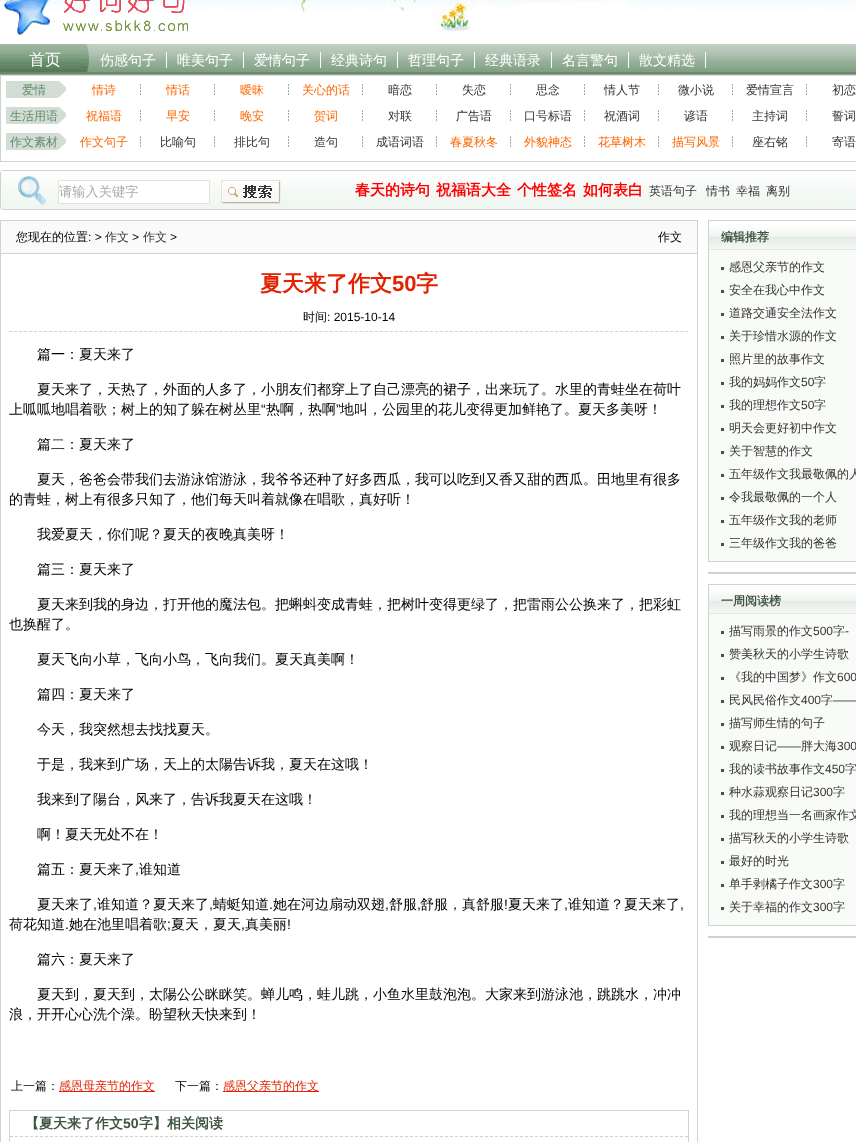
async function draw(canvas) {
	canvas.width = 856;
	canvas.height = 1142;
	const c = canvas.getContext('2d');
	c.miterLimit = 4;
	c.fontKerning = 'normal';
	async function loadImage(src) {
		const img = new Image();
		img.src = src;
		await img.decode();
		return img;
	}

	c.fillStyle = '#fff';
	c.fillRect(0, 0, 856, 1142);
	c.drawImage(await loadImage('img1.png'), 0, 0, 856, 33);
	c.drawImage(await loadImage('img2.png'), 4, 0, 184, 35);
	c.drawImage(await loadImage('img3.png'), 0, 42, 856, 34);
	c.font = '500 16px WenQuanYi Zen Hei';
	c.fillText('首页', 29, 65);
	c.fillStyle = '#fbfcfb';
	c.fillRect(166, 52, 1, 16);
	c.font = '500 14px WenQuanYi Zen Hei';
	c.fillStyle = '#fff';
	c.fillText('伤感句子', 100, 65);
	c.fillStyle = '#fbfcfb';
	c.fillRect(243, 52, 1, 16);
	c.fillStyle = '#fff';
	c.fillText('唯美句子', 177, 65);
	c.fillStyle = '#fbfcfb';
	c.fillRect(320, 52, 1, 16);
	c.fillStyle = '#fff';
	c.fillText('爱情句子', 254, 65);
	c.fillStyle = '#fbfcfb';
	c.fillRect(397, 52, 1, 16);
	c.fillStyle = '#fff';
	c.fillText('经典诗句', 331, 65);
	c.fillStyle = '#fbfcfb';
	c.fillRect(474, 52, 1, 16);
	c.fillStyle = '#fff';
	c.fillText('哲理句子', 408, 65);
	c.fillStyle = '#fbfcfb';
	c.fillRect(551, 52, 1, 16);
	c.fillStyle = '#fff';
	c.fillText('经典语录', 485, 65);
	c.fillStyle = '#fbfcfb';
	c.fillRect(628, 52, 1, 16);
	c.fillStyle = '#fff';
	c.fillText('名言警句', 562, 65);
	c.fillStyle = '#fbfcfb';
	c.fillRect(705, 52, 1, 16);
	c.fillStyle = '#fff';
	c.fillText('散文精选', 639, 65);
	c.fillStyle = '#ccd5cd';
	c.fillRect(0, 161, 856, 1);
	c.fillRect(0, 76, 1, 86);
	c.drawImage(await loadImage('img4.png'), 6, 81, 60, 17);
	c.font = '500 12px WenQuanYi Zen Hei';
	c.fillStyle = '#668a69';
	c.fillText('爱情', 22, 94);
	c.fillStyle = '#f60';
	c.fillText('情诗', 92, 94);
	c.drawImage(await loadImage('img5.png'), 140, 84, 1, 11);
	c.fillText('情话', 166, 94);
	c.drawImage(await loadImage('img5.png'), 214, 84, 1, 11);
	c.fillText('暧昧', 240, 94);
	c.drawImage(await loadImage('img5.png'), 288, 84, 1, 11);
	c.fillText('关心的话', 302, 94);
	c.drawImage(await loadImage('img5.png'), 362, 84, 1, 11);
	c.fillStyle = '#333';
	c.fillText('暗恋', 388, 94);
	c.drawImage(await loadImage('img5.png'), 436, 84, 1, 11);
	c.fillText('失恋', 462, 94);
	c.drawImage(await loadImage('img5.png'), 510, 84, 1, 11);
	c.fillText('思念', 536, 94);
	c.drawImage(await loadImage('img5.png'), 584, 84, 1, 11);
	c.fillText('情人节', 604, 94);
	c.drawImage(await loadImage('img5.png'), 658, 84, 1, 11);
	c.fillText('微小说', 678, 94);
	c.drawImage(await loadImage('img5.png'), 732, 84, 1, 11);
	c.fillText('爱情宣言', 746, 94);
	c.drawImage(await loadImage('img5.png'), 806, 84, 1, 11);
	c.fillText('初恋', 832, 94);
	c.drawImage(await loadImage('img4.png'), 6, 107, 60, 17);
	c.fillStyle = '#668a69';
	c.fillText('生活用语', 10, 120);
	c.fillStyle = '#f60';
	c.fillText('祝福语', 86, 120);
	c.drawImage(await loadImage('img5.png'), 140, 110, 1, 11);
	c.fillText('早安', 166, 120);
	c.drawImage(await loadImage('img5.png'), 214, 110, 1, 11);
	c.fillText('晚安', 240, 120);
	c.drawImage(await loadImage('img5.png'), 288, 110, 1, 11);
	c.fillText('贺词', 314, 120);
	c.drawImage(await loadImage('img5.png'), 362, 110, 1, 11);
	c.fillStyle = '#333';
	c.fillText('对联', 388, 120);
	c.drawImage(await loadImage('img5.png'), 436, 110, 1, 11);
	c.fillText('广告语', 456, 120);
	c.drawImage(await loadImage('img5.png'), 510, 110, 1, 11);
	c.fillText('口号标语', 524, 120);
	c.drawImage(await loadImage('img5.png'), 584, 110, 1, 11);
	c.fillText('祝酒词', 604, 120);
	c.drawImage(await loadImage('img5.png'), 658, 110, 1, 11);
	c.fillText('谚语', 684, 120);
	c.drawImage(await loadImage('img5.png'), 732, 110, 1, 11);
	c.fillText('主持词', 752, 120);
	c.drawImage(await loadImage('img5.png'), 806, 110, 1, 11);
	c.fillText('誓词', 832, 120);
	c.drawImage(await loadImage('img4.png'), 6, 133, 60, 17);
	c.fillStyle = '#668a69';
	c.fillText('作文素材', 10, 146);
	c.fillStyle = '#f60';
	c.fillText('作文句子', 80, 146);
	c.drawImage(await loadImage('img5.png'), 140, 136, 1, 11);
	c.fillStyle = '#333';
	c.fillText('比喻句', 160, 146);
	c.drawImage(await loadImage('img5.png'), 214, 136, 1, 11);
	c.fillText('排比句', 234, 146);
	c.drawImage(await loadImage('img5.png'), 288, 136, 1, 11);
	c.fillText('造句', 314, 146);
	c.drawImage(await loadImage('img5.png'), 362, 136, 1, 11);
	c.fillText('成语词语', 376, 146);
	c.drawImage(await loadImage('img5.png'), 436, 136, 1, 11);
	c.fillStyle = '#f60';
	c.fillText('春夏秋冬', 450, 146);
	c.drawImage(await loadImage('img5.png'), 510, 136, 1, 11);
	c.fillText('外貌神态', 524, 146);
	c.drawImage(await loadImage('img5.png'), 584, 136, 1, 11);
	c.fillText('花草树木', 598, 146);
	c.drawImage(await loadImage('img5.png'), 658, 136, 1, 11);
	c.fillText('描写风景', 672, 146);
	c.drawImage(await loadImage('img5.png'), 732, 136, 1, 11);
	c.fillStyle = '#333';
	c.fillText('座右铭', 752, 146);
	c.drawImage(await loadImage('img5.png'), 806, 136, 1, 11);
	c.fillText('寄语', 832, 146);
	c.drawImage(await loadImage('img6.png'), 0, 170, 856, 40);
	c.fillStyle = '#fff';
	c.beginPath();
	c.rect(58.5, 180.5, 151, 23);
	c.fill();
	c.strokeStyle = '#e3e2d5';
	c.stroke();
	c.font = '500 13.25px WenQuanYi Zen Hei';
	c.fillStyle = '#aaa';
	c.fillText('请输入关键字', 59, 196);
	c.drawImage(await loadImage('img7.png'), 221, 180, 60, 24);
	c.font = 'bold 15px WenQuanYi Zen Hei';
	c.fillStyle = '#f00';
	for (const [text, x, y] of [
		['春天的诗句', 355, 195],
		['祝福语大全', 436, 195],
		['个性签名', 517, 195],
		['如何表白', 583, 195],
	]) {
		c.fillText(text, x, y);
	}
	c.font = '500 12px WenQuanYi Zen Hei';
	c.fillStyle = '#333';
	for (const [text, x, y] of [
		['英语句子', 649, 195],
		['情书', 706, 195],
		['幸福', 736, 195],
		['离别', 766, 195],
	]) {
		c.fillText(text, x, y);
	}
	c.strokeStyle = '#ccd5cd';
	c.strokeRect(0.5, 220.5, 697, 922);
	c.fillStyle = '#fafafa';
	c.fillRect(1, 221, 696, 32);
	c.fillStyle = '#ccd5cd';
	c.fillRect(1, 253, 696, 1);
	c.fillStyle = '#000';
	c.fillText('您现在的位置', 16, 241);
	c.font = '12px Liberation Sans';
	c.fillText(': >', 88, 241);
	c.font = '500 12px WenQuanYi Zen Hei';
	c.fillStyle = '#333';
	c.fillText('作文', 105, 241);
	c.font = '12px Liberation Sans';
	c.fillStyle = '#000';
	c.fillText('>', 132, 241);
	c.font = '500 12px WenQuanYi Zen Hei';
	c.fillStyle = '#333';
	c.fillText('作文', 143, 241);
	c.font = '12px Liberation Sans';
	c.fillStyle = '#000';
	c.fillText('>', 170, 241);
	c.font = '500 12px WenQuanYi Zen Hei';
	c.fillText('作文', 658, 241);
	c.font = 'bold 22px WenQuanYi Zen Hei';
	c.fillStyle = '#e32202';
	c.fillText('夏天来了作文', 260, 291);
	c.font = 'bold 22px Liberation Sans';
	c.fillText('50', 392, 291);
	c.font = 'bold 22px WenQuanYi Zen Hei';
	c.fillText('字', 416, 291);
	c.beginPath();
	c.moveTo(9, 331.5);
	c.lineTo(689, 331.5);
	c.setLineDash([3, 2.01]);
	c.stroke();
	c.font = '500 12px WenQuanYi Zen Hei';
	c.fillStyle = '#000';
	c.fillText('时间', 303, 321);
	c.font = '12px Liberation Sans';
	c.fillText(': 2015-10-14', 327, 321);
	c.font = '500 14px WenQuanYi Zen Hei';
	for (const [text, x, y] of [
		['篇一：夏天来了', 37, 359],
		['夏天来了，天热了，外面的人多了，小朋友们都穿上了自己漂亮的裙子，出来玩了。水里的青蛙坐在荷叶', 37, 394],
		['上呱呱地唱着歌；树上的知了躲在树丛里', 9, 414],
	]) {
		c.fillText(text, x, y);
	}
	c.font = '14px Liberation Sans';
	c.fillText('“', 261, 414);
	c.font = '500 14px WenQuanYi Zen Hei';
	c.fillText('热啊，热啊', 266, 414);
	c.font = '14px Liberation Sans';
	c.fillText('”', 336, 414);
	c.font = '500 14px WenQuanYi Zen Hei';
	for (const [text, x, y] of [
		['地叫，公园里的花儿变得更加鲜艳了。夏天多美呀！', 340, 414],
		['篇二：夏天来了', 37, 449],
		['夏天，爸爸会带我们去游泳馆游泳，我爷爷还种了好多西瓜，我可以吃到又香又甜的西瓜。田地里有很多', 37, 484],
		['的青蛙，树上有很多只知了，他们每天叫着就像在唱歌，真好听！', 9, 504],
		['我爱夏天，你们呢？夏天的夜晚真美呀！', 37, 539],
		['篇三：夏天来了', 37, 574],
		['夏天来到我的身边，打开他的魔法包。把蝌蚪变成青蛙，把树叶变得更绿了，把雷雨公公换来了，把彩虹', 37, 609],
		['也换醒了。', 9, 629],
		['夏天飞向小草，飞向小鸟，飞向我们。夏天真美啊！', 37, 664],
		['篇四：夏天来了', 37, 699],
		['今天，我突然想去找找夏天。', 37, 734],
		['于是，我来到广场，天上的太陽告诉我，夏天在这哦！', 37, 769],
		['我来到了陽台，风来了，告诉我夏天在这哦！', 37, 804],
		['啊！夏天无处不在！', 37, 839],
		['篇五：夏天来了', 37, 874],
	]) {
		c.fillText(text, x, y);
	}
	c.font = '14px Liberation Sans';
	c.fillText(',', 135, 874);
	c.font = '500 14px WenQuanYi Zen Hei';
	c.fillText('谁知道', 139, 874);
	c.fillText('夏天来了', 37, 909);
	c.font = '14px Liberation Sans';
	c.fillText(',', 93, 909);
	c.font = '500 14px WenQuanYi Zen Hei';
	c.fillText('谁知道？夏天来了', 97, 909);
	c.font = '14px Liberation Sans';
	c.fillText(',', 209, 909);
	c.font = '500 14px WenQuanYi Zen Hei';
	c.fillText('蜻蜓知道', 213, 909);
	c.font = '14px Liberation Sans';
	c.fillText('.', 269, 909);
	c.font = '500 14px WenQuanYi Zen Hei';
	c.fillText('她在河边扇动双翅', 273, 909);
	c.font = '14px Liberation Sans';
	c.fillText(',', 385, 909);
	c.font = '500 14px WenQuanYi Zen Hei';
	c.fillText('舒服', 389, 909);
	c.font = '14px Liberation Sans';
	c.fillText(',', 417, 909);
	c.font = '500 14px WenQuanYi Zen Hei';
	c.fillText('舒服，真舒服', 420, 909);
	c.font = '14px Liberation Sans';
	c.fillText('!', 504, 909);
	c.font = '500 14px WenQuanYi Zen Hei';
	c.fillText('夏天来了', 508, 909);
	c.font = '14px Liberation Sans';
	c.fillText(',', 564, 909);
	c.font = '500 14px WenQuanYi Zen Hei';
	c.fillText('谁知道？夏天来了', 568, 909);
	c.font = '14px Liberation Sans';
	c.fillText(',', 680, 909);
	c.font = '500 14px WenQuanYi Zen Hei';
	c.fillText('荷花知道', 9, 929);
	c.font = '14px Liberation Sans';
	c.fillText('.', 65, 929);
	c.font = '500 14px WenQuanYi Zen Hei';
	c.fillText('她在池里唱着歌', 69, 929);
	c.font = '14px Liberation Sans';
	c.fillText(';', 167, 929);
	c.font = '500 14px WenQuanYi Zen Hei';
	c.fillText('夏天，夏天', 171, 929);
	c.font = '14px Liberation Sans';
	c.fillText(',', 241, 929);
	c.font = '500 14px WenQuanYi Zen Hei';
	c.fillText('真美丽', 245, 929);
	c.font = '14px Liberation Sans';
	c.fillText('!', 287, 929);
	c.font = '500 14px WenQuanYi Zen Hei';
	for (const [text, x, y] of [
		['篇六：夏天来了', 37, 964],
		['夏天到，夏天到，太陽公公眯眯笑。蝉儿鸣，蛙儿跳，小鱼水里鼓泡泡。大家来到游泳池，跳跳水，冲冲', 37, 999],
		['浪，开开心心洗个澡。盼望秋天快来到！', 9, 1019],
	]) {
		c.fillText(text, x, y);
	}
	c.font = '500 12px WenQuanYi Zen Hei';
	c.fillText('上一篇：', 11, 1090);
	c.fillStyle = '#e32202';
	c.fillRect(59, 1091, 96, 1);
	c.fillText('感恩母亲节的作文', 59, 1090);
	c.fillStyle = '#000';
	c.fillText('下一篇：', 175, 1090);
	c.fillStyle = '#e32202';
	c.fillRect(223, 1091, 96, 1);
	c.fillText('感恩父亲节的作文', 223, 1090);
	c.setLineDash([]);
	c.strokeRect(9.5, 1110.5, 679, 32);
	c.beginPath();
	c.moveTo(10, 1136.5);
	c.lineTo(688, 1136.5);
	c.setLineDash([3, 2]);
	c.stroke();
	c.font = 'bold 14px WenQuanYi Zen Hei';
	c.fillStyle = '#3f5441';
	c.fillText('【夏天来了作文', 25, 1128);
	c.font = 'bold 14px Liberation Sans';
	c.fillText('50', 123, 1128);
	c.font = 'bold 14px WenQuanYi Zen Hei';
	c.fillText('字】相关阅读', 139, 1128);
	c.fillStyle = '#f8fbf7';
	c.fillRect(709, 250, 147, 311);
	c.setLineDash([]);
	c.strokeRect(708.5, 220.5, 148, 341);
	c.drawImage(await loadImage('img8.png'), 709, 221, 147, 29);
	c.font = 'bold 12px WenQuanYi Zen Hei';
	c.fillStyle = '#3f5441';
	c.fillText('编辑推荐', 721, 241);
	c.fillRect(721, 267, 3, 3);
	c.font = '500 12px WenQuanYi Zen Hei';
	c.fillStyle = '#333';
	c.fillText('感恩父亲节的作文', 729, 271);
	c.fillStyle = '#3f5441';
	c.fillRect(721, 290, 3, 3);
	c.fillStyle = '#333';
	c.fillText('安全在我心中作文', 729, 294);
	c.fillStyle = '#3f5441';
	c.fillRect(721, 313, 3, 3);
	c.fillStyle = '#333';
	c.fillText('道路交通安全法作文', 729, 317);
	c.fillStyle = '#3f5441';
	c.fillRect(721, 336, 3, 3);
	c.fillStyle = '#333';
	c.fillText('关于珍惜水源的作文', 729, 340);
	c.fillStyle = '#3f5441';
	c.fillRect(721, 359, 3, 3);
	c.fillStyle = '#333';
	c.fillText('照片里的故事作文', 729, 363);
	c.fillStyle = '#3f5441';
	c.fillRect(721, 382, 3, 3);
	c.fillStyle = '#333';
	c.fillText('我的妈妈作文', 729, 386);
	c.font = '12px Liberation Sans';
	c.fillText('50', 801, 386);
	c.font = '500 12px WenQuanYi Zen Hei';
	c.fillText('字', 814, 386);
	c.fillStyle = '#3f5441';
	c.fillRect(721, 405, 3, 3);
	c.fillStyle = '#333';
	c.fillText('我的理想作文', 729, 409);
	c.font = '12px Liberation Sans';
	c.fillText('50', 801, 409);
	c.font = '500 12px WenQuanYi Zen Hei';
	c.fillText('字', 814, 409);
	c.fillStyle = '#3f5441';
	c.fillRect(721, 428, 3, 3);
	c.fillStyle = '#333';
	c.fillText('明天会更好初中作文', 729, 432);
	c.fillStyle = '#3f5441';
	c.fillRect(721, 451, 3, 3);
	c.fillStyle = '#333';
	c.fillText('关于智慧的作文', 729, 455);
	c.fillStyle = '#3f5441';
	c.fillRect(721, 474, 3, 3);
	c.fillStyle = '#333';
	c.fillText('五年级作文我最敬佩的人', 729, 478);
	c.fillStyle = '#3f5441';
	c.fillRect(721, 497, 3, 3);
	c.fillStyle = '#333';
	c.fillText('令我最敬佩的一个人', 729, 501);
	c.fillStyle = '#3f5441';
	c.fillRect(721, 520, 3, 3);
	c.fillStyle = '#333';
	c.fillText('五年级作文我的老师', 729, 524);
	c.fillStyle = '#3f5441';
	c.fillRect(721, 543, 3, 3);
	c.fillStyle = '#333';
	c.fillText('三年级作文我的爸爸', 729, 547);
	c.fillStyle = '#ccd5cd';
	c.fillRect(708, 572, 148, 2);
	c.fillStyle = '#f8fbf7';
	c.fillRect(709, 614, 147, 311);
	c.strokeRect(708.5, 584.5, 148, 341);
	c.drawImage(await loadImage('img8.png'), 709, 585, 147, 29);
	c.font = 'bold 12px WenQuanYi Zen Hei';
	c.fillStyle = '#3f5441';
	c.fillText('一周阅读榜', 721, 605);
	c.fillRect(721, 631, 3, 3);
	c.font = '500 12px WenQuanYi Zen Hei';
	c.fillStyle = '#333';
	c.fillText('描写雨景的作文', 729, 635);
	c.font = '12px Liberation Sans';
	c.fillText('500', 813, 635);
	c.font = '500 12px WenQuanYi Zen Hei';
	c.fillText('字', 833, 635);
	c.font = '12px Liberation Sans';
	c.fillText('-', 845, 635);
	c.fillStyle = '#3f5441';
	c.fillRect(721, 654, 3, 3);
	c.font = '500 12px WenQuanYi Zen Hei';
	c.fillStyle = '#333';
	c.fillText('赞美秋天的小学生诗歌', 729, 658);
	c.fillStyle = '#3f5441';
	c.fillRect(721, 677, 3, 3);
	c.fillStyle = '#333';
	c.fillText('《我的中国梦》作文', 729, 681);
	c.font = '12px Liberation Sans';
	c.fillText('600', 837, 681);
	c.fillStyle = '#3f5441';
	c.fillRect(721, 700, 3, 3);
	c.font = '500 12px WenQuanYi Zen Hei';
	c.fillStyle = '#333';
	c.fillText('民风民俗作文', 729, 704);
	c.font = '12px Liberation Sans';
	c.fillText('400', 801, 704);
	c.font = '500 12px WenQuanYi Zen Hei';
	c.fillText('字', 821, 704);
	c.font = '12px Liberation Sans';
	c.fillText('——', 833, 704);
	c.fillStyle = '#3f5441';
	c.fillRect(721, 723, 3, 3);
	c.font = '500 12px WenQuanYi Zen Hei';
	c.fillStyle = '#333';
	c.fillText('描写师生情的句子', 729, 727);
	c.fillStyle = '#3f5441';
	c.fillRect(721, 746, 3, 3);
	c.fillStyle = '#333';
	c.fillText('观察日记', 729, 750);
	c.font = '12px Liberation Sans';
	c.fillText('——', 777, 750);
	c.font = '500 12px WenQuanYi Zen Hei';
	c.fillText('胖大海', 801, 750);
	c.font = '12px Liberation Sans';
	c.fillText('300', 837, 750);
	c.fillStyle = '#3f5441';
	c.fillRect(721, 769, 3, 3);
	c.font = '500 12px WenQuanYi Zen Hei';
	c.fillStyle = '#333';
	c.fillText('我的读书故事作文', 729, 773);
	c.font = '12px Liberation Sans';
	c.fillText('450', 825, 773);
	c.font = '500 12px WenQuanYi Zen Hei';
	c.fillText('字', 845, 773);
	c.fillStyle = '#3f5441';
	c.fillRect(721, 792, 3, 3);
	c.fillStyle = '#333';
	c.fillText('种水蒜观察日记', 729, 796);
	c.font = '12px Liberation Sans';
	c.fillText('300', 813, 796);
	c.font = '500 12px WenQuanYi Zen Hei';
	c.fillText('字', 833, 796);
	c.fillStyle = '#3f5441';
	c.fillRect(721, 815, 3, 3);
	c.fillStyle = '#333';
	c.fillText('我的理想当一名画家作文', 729, 819);
	c.fillStyle = '#3f5441';
	c.fillRect(721, 838, 3, 3);
	c.fillStyle = '#333';
	c.fillText('描写秋天的小学生诗歌', 729, 842);
	c.fillStyle = '#3f5441';
	c.fillRect(721, 861, 3, 3);
	c.fillStyle = '#333';
	c.fillText('最好的时光', 729, 865);
	c.fillStyle = '#3f5441';
	c.fillRect(721, 884, 3, 3);
	c.fillStyle = '#333';
	c.fillText('单手剥橘子作文', 729, 888);
	c.font = '12px Liberation Sans';
	c.fillText('300', 813, 888);
	c.font = '500 12px WenQuanYi Zen Hei';
	c.fillText('字', 833, 888);
	c.fillStyle = '#3f5441';
	c.fillRect(721, 907, 3, 3);
	c.fillStyle = '#333';
	c.fillText('关于幸福的作文', 729, 911);
	c.font = '12px Liberation Sans';
	c.fillText('300', 813, 911);
	c.font = '500 12px WenQuanYi Zen Hei';
	c.fillText('字', 833, 911);
	c.fillStyle = '#ccd5cd';
	c.fillRect(708, 936, 148, 2);
}

draw(document.querySelector('canvas'));
